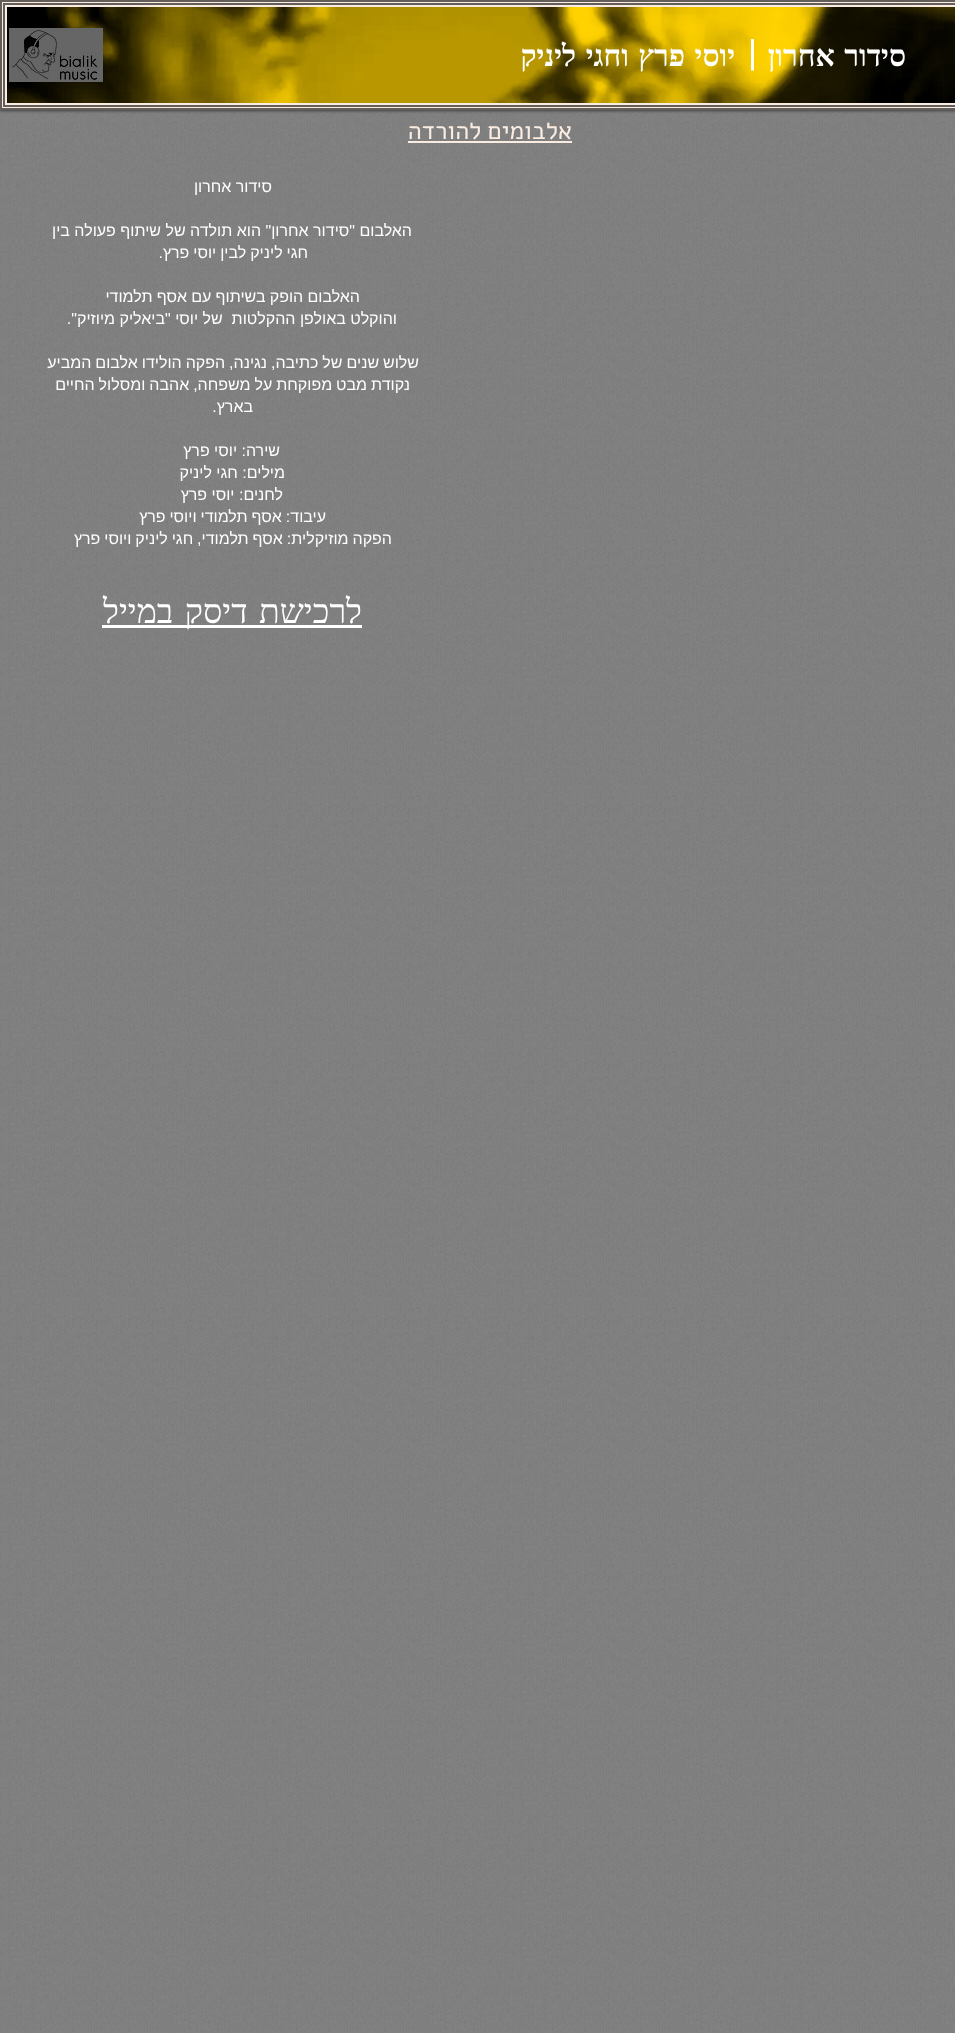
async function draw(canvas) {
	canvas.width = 955;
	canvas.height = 2033;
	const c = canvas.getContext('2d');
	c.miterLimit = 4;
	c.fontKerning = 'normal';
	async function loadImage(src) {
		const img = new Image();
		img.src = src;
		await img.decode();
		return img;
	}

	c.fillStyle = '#838383';
	c.fillRect(0, 0, 955, 2033);
	c.drawImage(await loadImage('img3.png'), 0, 110, 955, 1923);
	c.fillStyle = '#00000080';
	c.filter = 'blur(1.5px)';
	c.beginPath();
	c.rect(0, 1, 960, 110);
	c.fill();
	c.filter = 'none';
	c.fillStyle = '#faece1';
	c.beginPath();
	c.rect(1, 1, 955, 108);
	c.fill();
	c.strokeStyle = '#645e5a';
	c.lineWidth = 2;
	c.stroke();
	c.drawImage(await loadImage('img1.png'), 7, 7, 948, 96);
	c.strokeRect(4, 4, 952, 102);
	c.wordSpacing = '2px';
	c.direction = 'rtl';
	c.font = 'bold 30px Liberation Serif';
	c.fillStyle = '#fff';
	c.fillText('סידור אחרון', 906, 66);
	c.wordSpacing = '0px';
	c.font = 'bold 30px Kelly Slab';
	c.fillText('|', 756, 66);
	c.wordSpacing = '2px';
	c.font = 'bold 30px Liberation Serif';
	c.fillText('יוסי פרץ וחגי ליניק', 735, 66);
	c.drawImage(await loadImage('img2.png'), 9, 28, 94, 54);
	c.wordSpacing = '0px';
	c.font = '25px Alef';
	c.fillStyle = '#faece1';
	c.fillText('אלבומים להורדה', 572, 139);
	c.fillRect(408, 141, 164, 2);
	c.font = '16px Liberation Sans';
	c.fillStyle = '#fff';
	c.fillText('סידור אחרון', 272, 192);
	c.fillText('האלבום "סידור אחרון" הוא תולדה של שיתוף פעולה בין', 412, 236);
	c.wordSpacing = '-0.5px';
	c.fillText('חגי ליניק לבין יוסי פרץ.', 308, 258);
	c.wordSpacing = '-0.25px';
	c.fillText('האלבום הופק בשיתוף עם אסף תלמודי', 360, 302);
	c.wordSpacing = '0px';
	c.fillText('והוקלט באולפן ההקלטות  של יוסי "ביאליק מיוזיק".', 397, 324);
	c.wordSpacing = '-0.5px';
	c.fillText('שלוש שנים של כתיבה, נגינה, הפקה הולידו אלבום המביע', 419, 368);
	c.fillText('נקודת מבט מפוקחת על משפחה, אהבה ומסלול החיים', 410, 390);
	c.wordSpacing = '0px';
	for (const [text, x, y] of [
		['בארץ.', 253, 412],
		['שירה: יוסי פרץ', 280, 456],
		['מילים: חגי ליניק', 285, 478],
		['לחנים: יוסי פרץ', 283, 500],
	]) {
		c.fillText(text, x, y);
	}
	c.wordSpacing = '-0.5px';
	c.fillText('עיבוד: אסף תלמודי ויוסי פרץ', 326, 522);
	c.fillText('הפקה מוזיקלית: אסף תלמודי, חגי ליניק ויוסי פרץ', 392, 544);
	c.fillRect(102, 625, 260, 3);
	c.wordSpacing = '3px';
	c.font = '34px Liberation Serif';
	c.fillText('לרכישת דיסק במייל', 362, 623);
}

draw(document.querySelector('canvas'));
